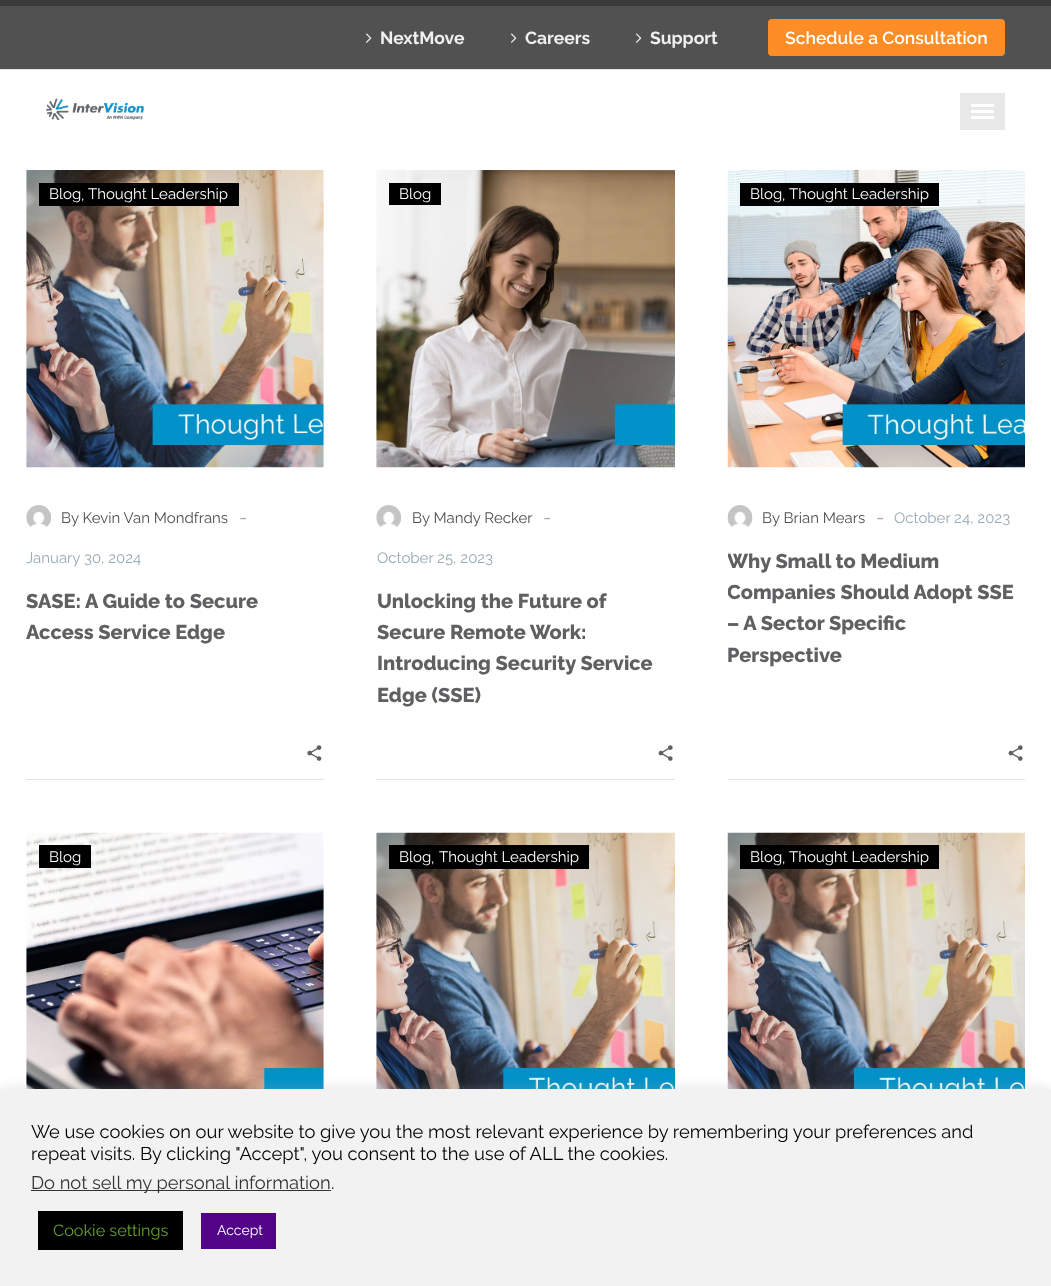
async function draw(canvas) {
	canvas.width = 1051;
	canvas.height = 1286;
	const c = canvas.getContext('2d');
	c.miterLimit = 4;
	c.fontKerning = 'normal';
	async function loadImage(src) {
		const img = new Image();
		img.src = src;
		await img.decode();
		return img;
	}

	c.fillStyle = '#515151';
	c.fillRect(0, 0, 1051, 1286);
	c.fillStyle = '#3b3a3a';
	c.fillRect(0, 0, 1051, 6);
	c.fillStyle = '#dfe5e8';
	c.fillRect(0, 69, 1051, 1);
	c.drawImage(await loadImage('img1.png'), 366, 33, 6, 10);
	c.font = 'bold 17.5px Raleway';
	c.fillStyle = '#eff0f1';
	c.fillText('NextMove', 380, 44);
	c.drawImage(await loadImage('img1.png'), 511, 33, 6, 10);
	c.fillText('Careers', 525, 44);
	c.drawImage(await loadImage('img1.png'), 636, 33, 6, 10);
	c.fillText('Support', 650, 44);
	c.fillStyle = '#ff8d25';
	c.beginPath();
	c.roundRect(768, 19, 237, 37, 4);
	c.fill();
	c.font = '600 17.5px Raleway';
	c.fillStyle = '#fff';
	c.fillText('Schedule a Consultation', 785, 44);
	c.fillRect(0, 70, 1051, 1019);
	c.drawImage(await loadImage('img2.png'), 46, 98, 99, 22);
	for (const [x, y, w, h, color] of [
		[960, 93, 45, 37, '#e8e8e8'],
		[971, 104, 23, 3, '#fff'],
		[971, 110, 23, 3, '#fff'],
		[971, 116, 23, 3, '#fff'],
	]) {
		c.fillStyle = color;
		c.fillRect(x, y, w, h);
	}
	c.drawImage(await loadImage('img3.png'), 26, 170, 298, 298);
	c.fillStyle = '#000';
	c.fillRect(39, 183, 200, 23);
	c.font = '15px Raleway';
	c.fillStyle = '#fff';
	for (const [text, x, y] of [
		['Blog', 49, 199],
		[',', 81, 200],
		['Thought Leadership', 88, 199],
	]) {
		c.fillText(text, x, y);
	}
	c.fillStyle = '#dfe5e8';
	c.fillRect(26, 779, 298, 1);
	c.drawImage(await loadImage('img4.png'), 26, 505, 25, 22);
	c.fillStyle = '#4f4f50';
	c.fillText('By Kevin Van Mondfrans', 61, 523);
	c.font = '20px Raleway';
	c.fillStyle = '#99a9b5';
	c.fillText('-', 239, 524);
	c.font = '15px Raleway';
	c.fillText('January 30, 2024', 26, 563);
	c.font = '800 20px Raleway';
	c.fillStyle = '#5f6062';
	c.fillText('SASE: A Guide to Secure', 26, 608);
	c.fillText('Access Service Edge', 26, 639);
	c.drawImage(await loadImage('img5.png'), 307, 745, 15, 16);
	c.drawImage(await loadImage('img6.png'), 376, 170, 299, 298);
	c.fillStyle = '#000';
	c.fillRect(389, 183, 52, 22);
	c.font = '15px Raleway';
	c.fillStyle = '#fff';
	c.fillText('Blog', 399, 199);
	c.fillStyle = '#dfe5e8';
	c.fillRect(376, 779, 299, 1);
	c.drawImage(await loadImage('img7.png'), 376, 505, 25, 22);
	c.fillStyle = '#4f4f50';
	c.fillText('By Mandy Recker', 412, 523);
	c.font = '20px Raleway';
	c.fillStyle = '#99a9b5';
	c.fillText('-', 543, 524);
	c.font = '15px Raleway';
	c.fillText('October 25, 2023', 377, 563);
	c.font = '800 20px Raleway';
	c.fillStyle = '#5f6062';
	for (const [text, x, y] of [
		['Unlocking the Future of', 377, 608],
		['Secure Remote Work:', 377, 639],
		['Introducing Security Service', 377, 670],
		['Edge (SSE)', 377, 702],
	]) {
		c.fillText(text, x, y);
	}
	c.drawImage(await loadImage('img8.png'), 658, 745, 15, 16);
	c.drawImage(await loadImage('img9.png'), 727, 170, 298, 298);
	c.fillStyle = '#000';
	c.fillRect(740, 183, 199, 23);
	c.font = '15px Raleway';
	c.fillStyle = '#fff';
	for (const [text, x, y] of [
		['Blog', 750, 199],
		[',', 782, 200],
		['Thought Leadership', 789, 199],
	]) {
		c.fillText(text, x, y);
	}
	c.fillStyle = '#dfe5e8';
	c.fillRect(728, 779, 297, 1);
	c.drawImage(await loadImage('img10.png'), 727, 505, 26, 22);
	c.fillStyle = '#4f4f50';
	c.fillText('By Brian Mears', 762, 523);
	c.font = '20px Raleway';
	c.fillStyle = '#99a9b5';
	c.fillText('-', 876, 524);
	c.font = '15px Raleway';
	c.fillText('October 24, 2023', 894, 523);
	c.save();
	c.beginPath();
	c.rect(728, 545, 297, 125);
	c.clip();
	c.font = '800 20px Raleway';
	c.fillStyle = '#5f6062';
	c.fillText('Why Small to Medium', 727, 568);
	c.fillText('Companies Should Adopt SSE', 727, 599);
	c.restore();
	c.font = '800 20px Raleway';
	c.fillStyle = '#5f6062';
	c.fillText('– A Sector Specific', 727, 630);
	c.fillText('Perspective', 727, 662);
	c.drawImage(await loadImage('img8.png'), 1008, 745, 15, 16);
	c.drawImage(await loadImage('img11.png'), 26, 832, 298, 257);
	c.fillStyle = '#000';
	c.fillRect(39, 845, 52, 23);
	c.font = '15px Raleway';
	c.fillStyle = '#fff';
	c.fillText('Blog', 49, 862);
	c.drawImage(await loadImage('img12.png'), 376, 832, 299, 257);
	c.fillStyle = '#000';
	c.fillRect(389, 845, 200, 24);
	c.fillStyle = '#fff';
	for (const [text, x, y] of [
		['Blog', 399, 862],
		[',', 431, 863],
		['Thought Leadership', 439, 862],
	]) {
		c.fillText(text, x, y);
	}
	c.drawImage(await loadImage('img13.png'), 727, 832, 298, 257);
	c.fillStyle = '#000';
	c.fillRect(740, 845, 199, 24);
	c.fillStyle = '#fff';
	for (const [text, x, y] of [
		['Blog', 750, 862],
		[',', 782, 863],
		['Thought Leadership', 789, 862],
	]) {
		c.fillText(text, x, y);
	}
	c.fillStyle = '#acabab4d';
	c.filter = 'blur(6px)';
	c.beginPath();
	c.rect(0, 1088, 1051, 197);
	c.fill();
	c.filter = 'none';
	c.fillStyle = '#f2f2f2';
	c.fillRect(0, 1089, 1051, 197);
	c.font = '18.33px Raleway';
	c.fillStyle = '#000';
	c.fillText('We use cookies on our website to give you the most relevant experience by remembering your preferences and', 31, 1138);
	c.fillText('repeat visits. By clicking "Accept", you consent to the use of ALL the cookies.', 31, 1160);
	c.fillStyle = '#333';
	c.fillRect(31, 1190, 300, 1);
	c.fillText('Do not sell my personal information', 31, 1189);
	c.fillStyle = '#000';
	c.fillText('.', 331, 1189);
	c.fillRect(38, 1211, 145, 39);
	c.font = '16.25px Raleway';
	c.fillStyle = '#62a329';
	c.fillText('Cookie settings', 53, 1236);
	c.fillStyle = '#520489';
	c.fillRect(201, 1213, 75, 36);
	c.font = '14px Raleway';
	c.fillStyle = '#fff';
	c.fillText('Accept', 217, 1235);
}

draw(document.querySelector('canvas'));
